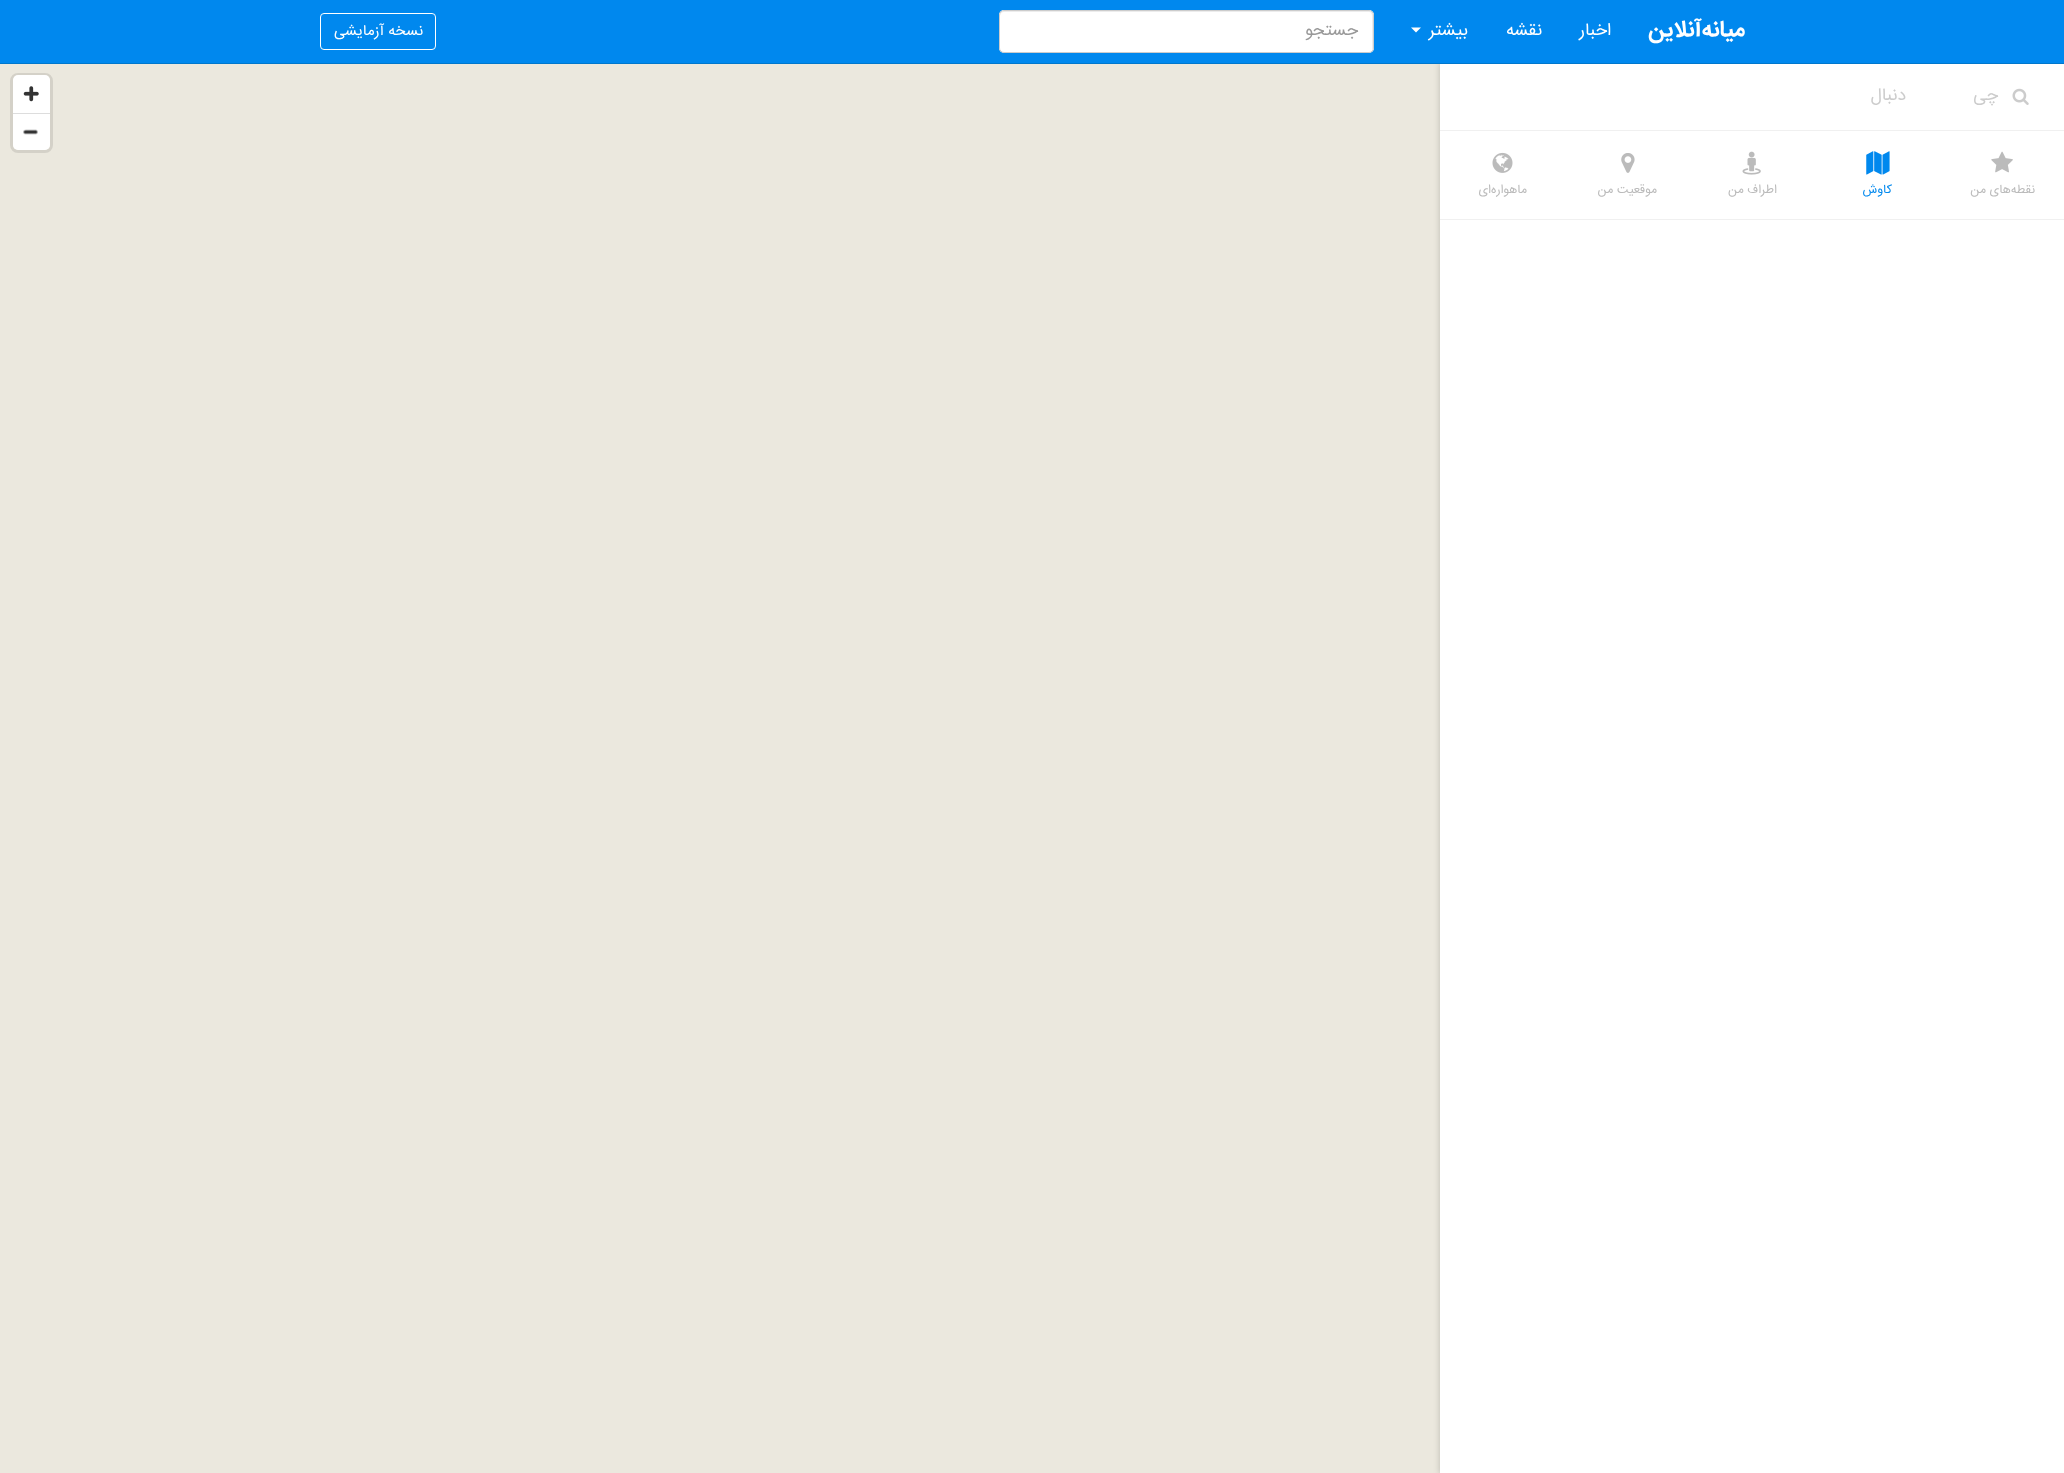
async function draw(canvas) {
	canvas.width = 2064;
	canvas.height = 1473;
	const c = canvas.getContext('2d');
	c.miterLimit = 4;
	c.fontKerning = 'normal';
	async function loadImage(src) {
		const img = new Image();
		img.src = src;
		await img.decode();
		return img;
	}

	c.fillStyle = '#ebe8de';
	c.fillRect(0, 0, 2064, 1473);
	c.fillStyle = '#00000033';
	c.filter = 'blur(3px)';
	c.beginPath();
	c.rect(1440, 63, 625, 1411);
	c.fill();
	c.filter = 'none';
	c.fillStyle = '#08e';
	c.fillRect(0, 0, 2064, 63);
	c.fillStyle = '#07c';
	c.fillRect(0, 63, 2064, 1);
	c.direction = 'rtl';
	c.font = 'bold 22.5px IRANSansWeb';
	c.fillStyle = '#fff';
	c.fillText('میانه‌آنلاین', 1745, 36);
	c.font = '17.5px IRANSansWeb';
	for (const [text, x, y] of [
		['اخبار', 1611, 35],
		['نقشه', 1542, 35],
		['بیشتر', 1468, 35],
	]) {
		c.fillText(text, x, y);
	}
	c.beginPath();
	c.moveTo(1411, 27.5);
	c.lineTo(1421, 27.5);
	c.lineTo(1416, 32.5);
	c.closePath();
	c.fill();
	c.beginPath();
	c.roundRect(999, 10, 375, 43, 5);
	c.fill();
	c.fillStyle = '#ececec';
	c.beginPath();
	c.moveTo(1004, 12);
	c.lineTo(1369, 12);
	c.bezierCurveTo(1371, 12, 1372, 14, 1372, 16);
	c.lineTo(1372, 50);
	c.bezierCurveTo(1373, 49, 1373, 48, 1373, 47);
	c.lineTo(1373, 15);
	c.bezierCurveTo(1373, 13, 1371, 11, 1369, 11);
	c.lineTo(1004, 11);
	c.bezierCurveTo(1002, 11, 1000, 13, 1000, 15);
	c.lineTo(1000, 16);
	c.bezierCurveTo(1000, 14, 1002, 12, 1004, 12);
	c.closePath();
	c.fill();
	c.beginPath();
	c.roundRect(999.5, 10.5, 374, 42, 4.5);
	c.strokeStyle = '#ccc';
	c.stroke();
	c.fillStyle = '#999';
	c.fillText('جستجو', 1358, 35);
	c.beginPath();
	c.roundRect(320.5, 13.5, 115, 36, 3.5);
	c.strokeStyle = '#fff';
	c.stroke();
	c.font = '15px IRANSansWeb';
	c.fillStyle = '#fff';
	c.fillText('نسخه آزمایشی', 423, 35);
	c.fillRect(1440, 64, 624, 1409);
	c.drawImage(await loadImage('img1.png'), 2012, 88, 17, 17);
	c.font = '17.5px IRANSansWeb';
	c.fillStyle = '#ccc';
	c.fillText('چی', 1998, 100);
	c.fillText('دنبال', 1906, 100);
	c.fillStyle = '#f0f0f0';
	c.fillRect(1440, 130, 624, 1);
	c.drawImage(await loadImage('img2.png'), 1991, 151, 22, 22);
	c.font = '12.5px IRANSansWeb';
	c.fillStyle = '#bbb';
	c.fillText('نقطه‌های من', 2035, 193);
	c.drawImage(await loadImage('img3.png'), 1866, 151, 24, 24);
	c.fillStyle = '#08e';
	c.fillText('کاوش', 1892, 193);
	c.drawImage(await loadImage('img4.png'), 1742, 151, 19, 24);
	c.fillStyle = '#bbb';
	c.fillText('اطراف من', 1777, 193);
	c.drawImage(await loadImage('img5.png'), 1621, 153, 14, 20);
	c.fillText('موقعیت من', 1657, 193);
	c.drawImage(await loadImage('img6.png'), 1492, 152, 21, 21);
	c.fillText('ماهواره‌ای', 1527, 193);
	c.fillStyle = '#f0f0f0';
	c.fillRect(1440, 219, 624, 1);
	c.beginPath();
	c.roundRect(11.5, 74.5, 40, 77, 6.5);
	c.strokeStyle = '#d4d1c8';
	c.lineWidth = 3;
	c.stroke();
	c.fillStyle = '#fff';
	c.beginPath();
	c.roundRect(13, 75, 37, 75, 5);
	c.fill();
	c.drawImage(await loadImage('img7.png'), 23, 86, 16, 16);
	c.drawImage(await loadImage('img8.png'), 23, 129, 15, 6);
	c.fillStyle = '#ddd';
	c.fillRect(13, 113, 37, 1);
}

draw(document.querySelector('canvas'));
